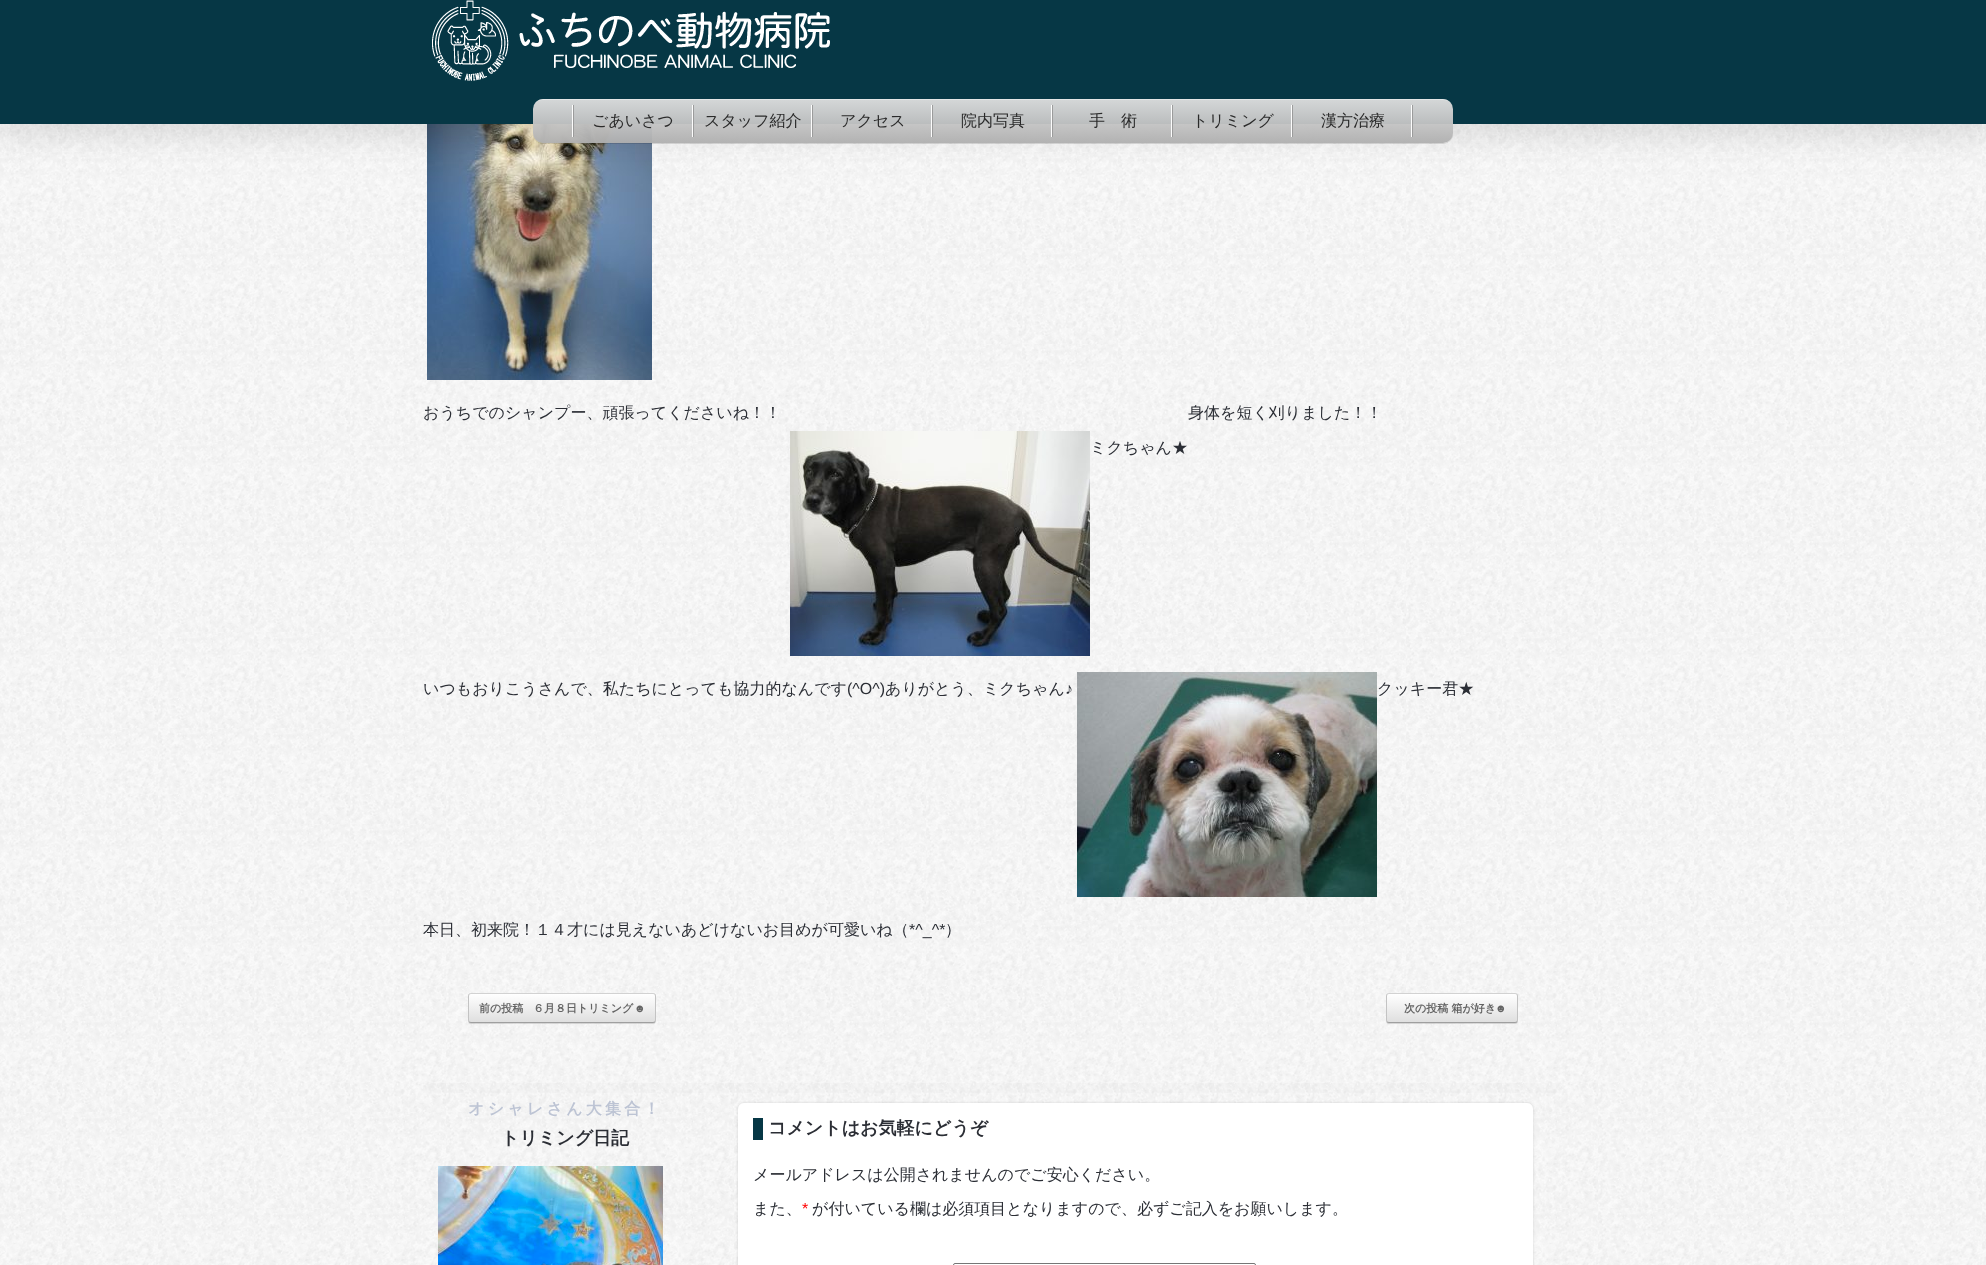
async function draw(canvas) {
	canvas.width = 1986;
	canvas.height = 1265;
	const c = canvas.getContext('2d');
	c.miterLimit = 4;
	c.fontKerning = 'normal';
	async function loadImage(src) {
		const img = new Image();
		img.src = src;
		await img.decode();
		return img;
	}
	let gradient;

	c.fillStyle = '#fff';
	c.fillRect(0, 0, 1986, 1265);
	c.drawImage(await loadImage('img2.png'), 0, 124, 1986, 1141);
	c.drawImage(await loadImage('img3.png'), 427, 124, 225, 256);
	c.fillStyle = '#00000017';
	c.filter = 'blur(12.5px)';
	c.beginPath();
	c.rect(0, -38, 1986, 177);
	c.fill();
	c.filter = 'none';
	c.fillStyle = '#063745';
	c.fillRect(0, 0, 1986, 124);
	c.drawImage(await loadImage('img1.png'), 432, 0, 398, 81);
	c.save();
	c.beginPath();
	c.moveTo(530, 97);
	c.lineTo(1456, 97);
	c.lineTo(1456, 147);
	c.lineTo(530, 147);
	c.closePath();
	c.moveTo(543, 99);
	c.lineTo(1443, 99);
	c.bezierCurveTo(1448.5, 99, 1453, 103.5, 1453, 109);
	c.lineTo(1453, 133);
	c.bezierCurveTo(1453, 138.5, 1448.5, 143, 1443, 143);
	c.lineTo(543, 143);
	c.bezierCurveTo(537.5, 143, 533, 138.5, 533, 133);
	c.lineTo(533, 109);
	c.bezierCurveTo(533, 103.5, 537.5, 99, 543, 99);
	c.closePath();
	c.clip('evenodd');
	c.fillStyle = '#0000001f';
	c.filter = 'blur(0.5px)';
	c.beginPath();
	c.roundRect(533, 100, 920, 44, 10);
	c.fill();
	c.filter = 'none';
	c.restore();
	gradient = c.createLinearGradient(993, 99, 993, 143);
	gradient.addColorStop(0, '#e0e0e0f2');
	gradient.addColorStop(1, '#afafaff2');
	c.fillStyle = gradient;
	c.beginPath();
	c.roundRect(533, 99, 920, 44, 10);
	c.fill();
	c.fillStyle = '#f3f5f680';
	c.beginPath();
	c.moveTo(543, 100);
	c.lineTo(1443, 100);
	c.bezierCurveTo(1449, 100, 1453, 104, 1453, 110);
	c.bezierCurveTo(1453, 104, 1449, 99, 1443, 99);
	c.lineTo(543, 99);
	c.bezierCurveTo(537, 99, 533, 104, 533, 110);
	c.bezierCurveTo(533, 104, 537, 100, 543, 100);
	c.closePath();
	c.fill();
	for (const [x, y, w, h, color] of [
		[572, 105, 1, 32, '#fffffff2'],
		[692, 105, 1, 32, '#fffffff2'],
		[573, 105, 1, 32, '#999999f2'],
	]) {
		c.fillStyle = color;
		c.fillRect(x, y, w, h);
	}
	c.font = '500 16px WenQuanYi Zen Hei';
	c.fillStyle = '#2a2a2a';
	c.fillText('ごあいさつ', 592, 126);
	for (const [x, y, w, h, color] of [
		[811, 105, 1, 32, '#fffffff2'],
		[812, 105, 1, 32, '#999999f2'],
		[693, 105, 1, 32, '#999999f2'],
	]) {
		c.fillStyle = color;
		c.fillRect(x, y, w, h);
	}
	c.fillStyle = '#2a2a2a';
	c.fillText('スタッフ紹介', 704, 126);
	c.fillStyle = '#fffffff2';
	c.fillRect(931, 105, 1, 32);
	c.fillStyle = '#999999f2';
	c.fillRect(932, 105, 1, 32);
	c.fillStyle = '#2a2a2a';
	c.fillText('アクセス', 840, 126);
	c.fillStyle = '#fffffff2';
	c.fillRect(1051, 105, 1, 32);
	c.fillStyle = '#999999f2';
	c.fillRect(1052, 105, 1, 32);
	c.fillStyle = '#2a2a2a';
	c.fillText('院内写真', 961, 126);
	c.fillStyle = '#fffffff2';
	c.fillRect(1171, 105, 1, 32);
	c.fillStyle = '#999999f2';
	c.fillRect(1172, 105, 1, 32);
	c.fillStyle = '#2a2a2a';
	c.fillText('手　術', 1089, 126);
	c.fillStyle = '#fffffff2';
	c.fillRect(1291, 105, 1, 32);
	c.fillStyle = '#999999f2';
	c.fillRect(1292, 105, 1, 32);
	c.fillStyle = '#2a2a2a';
	c.fillText('トリミング', 1192, 126);
	c.fillStyle = '#fffffff2';
	c.fillRect(1411, 105, 1, 32);
	c.fillStyle = '#999999f2';
	c.fillRect(1412, 105, 1, 32);
	c.fillStyle = '#2a2a2a';
	c.fillText('漢方治療', 1321, 126);
	c.fillStyle = '#2b2e35';
	c.fillText('おうちでのシャンプー、頑張ってくださいね！！', 423, 418);
	c.fillText('身体を短く刈りました！！', 1188, 418);
	c.drawImage(await loadImage('img4.png'), 790, 431, 300, 225);
	c.fillText('ミクちゃん★', 1090, 453);
	c.fillText('いつもおりこうさんで、私たちにとっても協力的なんです', 423, 694);
	c.font = '16px Liberation Sans';
	c.fillText('(^O^)', 847, 694);
	c.font = '500 16px WenQuanYi Zen Hei';
	c.fillText('ありがとう、ミクちゃん', 885, 694);
	c.font = '16px Liberation Sans';
	c.fillText('♪', 1065, 694);
	c.drawImage(await loadImage('img5.png'), 1077, 672, 300, 225);
	c.font = '500 16px WenQuanYi Zen Hei';
	c.fillText('クッキー君★', 1377, 694);
	c.fillText('本日、初来院！１４才には見えないあどけないお目めが可愛いね（', 423, 935);
	c.font = '16px Liberation Sans';
	c.fillText('*^_^*', 909, 935);
	c.font = '500 16px WenQuanYi Zen Hei';
	c.fillText('）', 945, 935);
	c.fillStyle = '#0000001f';
	c.filter = 'blur(0.5px)';
	c.beginPath();
	c.roundRect(468, 994, 188, 30, 3);
	c.fill();
	c.filter = 'none';
	c.save();
	c.beginPath();
	c.roundRect(468, 993, 188, 30, 3);
	c.clip();
	gradient = c.createLinearGradient(469, 1022, 469, 994);
	gradient.addColorStop(0, '#dfdfdf');
	gradient.addColorStop(1, '#fff');
	c.fillStyle = gradient;
	c.fillRect(468, 994, 188, 28);
	c.restore();
	c.beginPath();
	c.moveTo(469, 994);
	c.lineTo(471, 993.5);
	c.lineTo(653, 993.5);
	c.lineTo(655, 994);
	c.strokeStyle = '#d2d2d2';
	c.stroke();
	c.beginPath();
	c.moveTo(655, 994);
	c.bezierCurveTo(655, 994.5, 655.5, 995.5, 655.5, 996);
	c.lineTo(655.5, 1020);
	c.bezierCurveTo(655.5, 1020.5, 655, 1021.5, 655, 1022);
	c.strokeStyle = '#c3c3c3';
	c.stroke();
	c.beginPath();
	c.moveTo(655, 1022);
	c.lineTo(653, 1022.5);
	c.lineTo(471, 1022.5);
	c.lineTo(469, 1022);
	c.strokeStyle = '#9f9f9f';
	c.stroke();
	c.beginPath();
	c.moveTo(469, 1022);
	c.bezierCurveTo(469, 1021.5, 468.5, 1020.5, 468.5, 1020);
	c.lineTo(468.5, 996);
	c.bezierCurveTo(468.5, 995.5, 469, 994.5, 469, 994);
	c.strokeStyle = '#c3c3c3';
	c.stroke();
	c.font = 'bold 11px WenQuanYi Zen Hei';
	c.fillStyle = '#646464';
	c.fillText('前の投稿', 479, 1012);
	c.fillText('６月８日トリミング', 533, 1012);
	c.font = 'bold 11px Liberation Sans';
	c.fillText('☻', 634, 1012);
	c.fillStyle = '#0000001f';
	c.filter = 'blur(0.5px)';
	c.beginPath();
	c.roundRect(1386, 994, 132, 30, 3);
	c.fill();
	c.filter = 'none';
	c.save();
	c.beginPath();
	c.roundRect(1386, 993, 132, 30, 3);
	c.clip();
	gradient = c.createLinearGradient(1387, 1022, 1387, 994);
	gradient.addColorStop(0, '#dfdfdf');
	gradient.addColorStop(1, '#fff');
	c.fillStyle = gradient;
	c.fillRect(1386, 994, 132, 28);
	c.restore();
	c.beginPath();
	c.moveTo(1387, 994);
	c.lineTo(1389, 993.5);
	c.lineTo(1494, 993.5);
	c.lineTo(1515, 993.5);
	c.lineTo(1517, 994);
	c.strokeStyle = '#d2d2d2';
	c.stroke();
	c.beginPath();
	c.moveTo(1517, 994);
	c.bezierCurveTo(1517, 994.5, 1517.5, 995.5, 1517.5, 996);
	c.lineTo(1517.5, 1020);
	c.bezierCurveTo(1517.5, 1020.5, 1517, 1021.5, 1517, 1022);
	c.strokeStyle = '#c3c3c3';
	c.stroke();
	c.beginPath();
	c.moveTo(1517, 1022);
	c.lineTo(1515, 1022.5);
	c.lineTo(1410, 1022.5);
	c.lineTo(1389, 1022.5);
	c.lineTo(1387, 1022);
	c.strokeStyle = '#9f9f9f';
	c.stroke();
	c.beginPath();
	c.moveTo(1387, 1022);
	c.bezierCurveTo(1387, 1021.5, 1386.5, 1020.5, 1386.5, 1020);
	c.lineTo(1386.5, 996);
	c.bezierCurveTo(1386.5, 995.5, 1387, 994.5, 1387, 994);
	c.strokeStyle = '#c3c3c3';
	c.stroke();
	c.font = 'bold 11px WenQuanYi Zen Hei';
	c.fillStyle = '#646464';
	c.fillText('次の投稿 箱が好き', 1404, 1012);
	c.font = 'bold 11px Liberation Sans';
	c.fillText('☻', 1495, 1012);
	c.fillStyle = '#cccccc0f';
	c.fillRect(423, 1083, 1139, 10);
	c.letterSpacing = '3.25px';
	c.font = 'bold 16px WenQuanYi Zen Hei';
	c.fillStyle = '#bdc4d4';
	c.fillText('オシャレさん大集合！', 468, 1114);
	c.letterSpacing = '0px';
	c.font = 'bold 18px WenQuanYi Zen Hei';
	c.fillStyle = '#2b2e35';
	c.fillText('トリミング日記', 501, 1144);
	c.drawImage(await loadImage('img6.png'), 438, 1166, 225, 99);
	c.fillStyle = '#0000001f';
	c.filter = 'blur(1.5px)';
	c.beginPath();
	c.roundRect(738, 1103, 795, 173, 6);
	c.fill();
	c.filter = 'none';
	c.fillStyle = '#fff';
	c.beginPath();
	c.roundRect(738, 1103, 795, 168, 6);
	c.fill();
	c.fillStyle = '#ffffff80';
	c.beginPath();
	c.moveTo(744, 1104);
	c.lineTo(1527, 1104);
	c.bezierCurveTo(1530, 1104, 1533, 1107, 1533, 1110);
	c.bezierCurveTo(1533, 1106, 1531, 1103, 1527, 1103);
	c.lineTo(744, 1103);
	c.bezierCurveTo(740, 1103, 738, 1106, 738, 1110);
	c.bezierCurveTo(738, 1107, 741, 1104, 744, 1104);
	c.closePath();
	c.fill();
	c.fillStyle = '#063745';
	c.fillRect(753, 1118, 10, 22);
	c.fillStyle = '#2b2e35';
	c.fillText('コメントはお気軽にどうぞ', 768, 1134);
	c.font = '500 16px WenQuanYi Zen Hei';
	c.fillText('メールアドレスは公開されませんのでご安心ください。', 753, 1180);
	c.fillText('また、', 753, 1214);
	c.font = '16px Liberation Sans';
	c.fillStyle = '#f00';
	c.fillText('*', 802, 1214);
	c.font = '500 16px WenQuanYi Zen Hei';
	c.fillStyle = '#2b2e35';
	c.fillText('が付いている欄は必須項目となりますので、必ずご記入をお願いします。', 812, 1214);
	c.beginPath();
	c.roundRect(953.5, 1263.5, 302, 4, 1.5);
	c.strokeStyle = '#767676';
	c.stroke();
}

draw(document.querySelector('canvas'));
